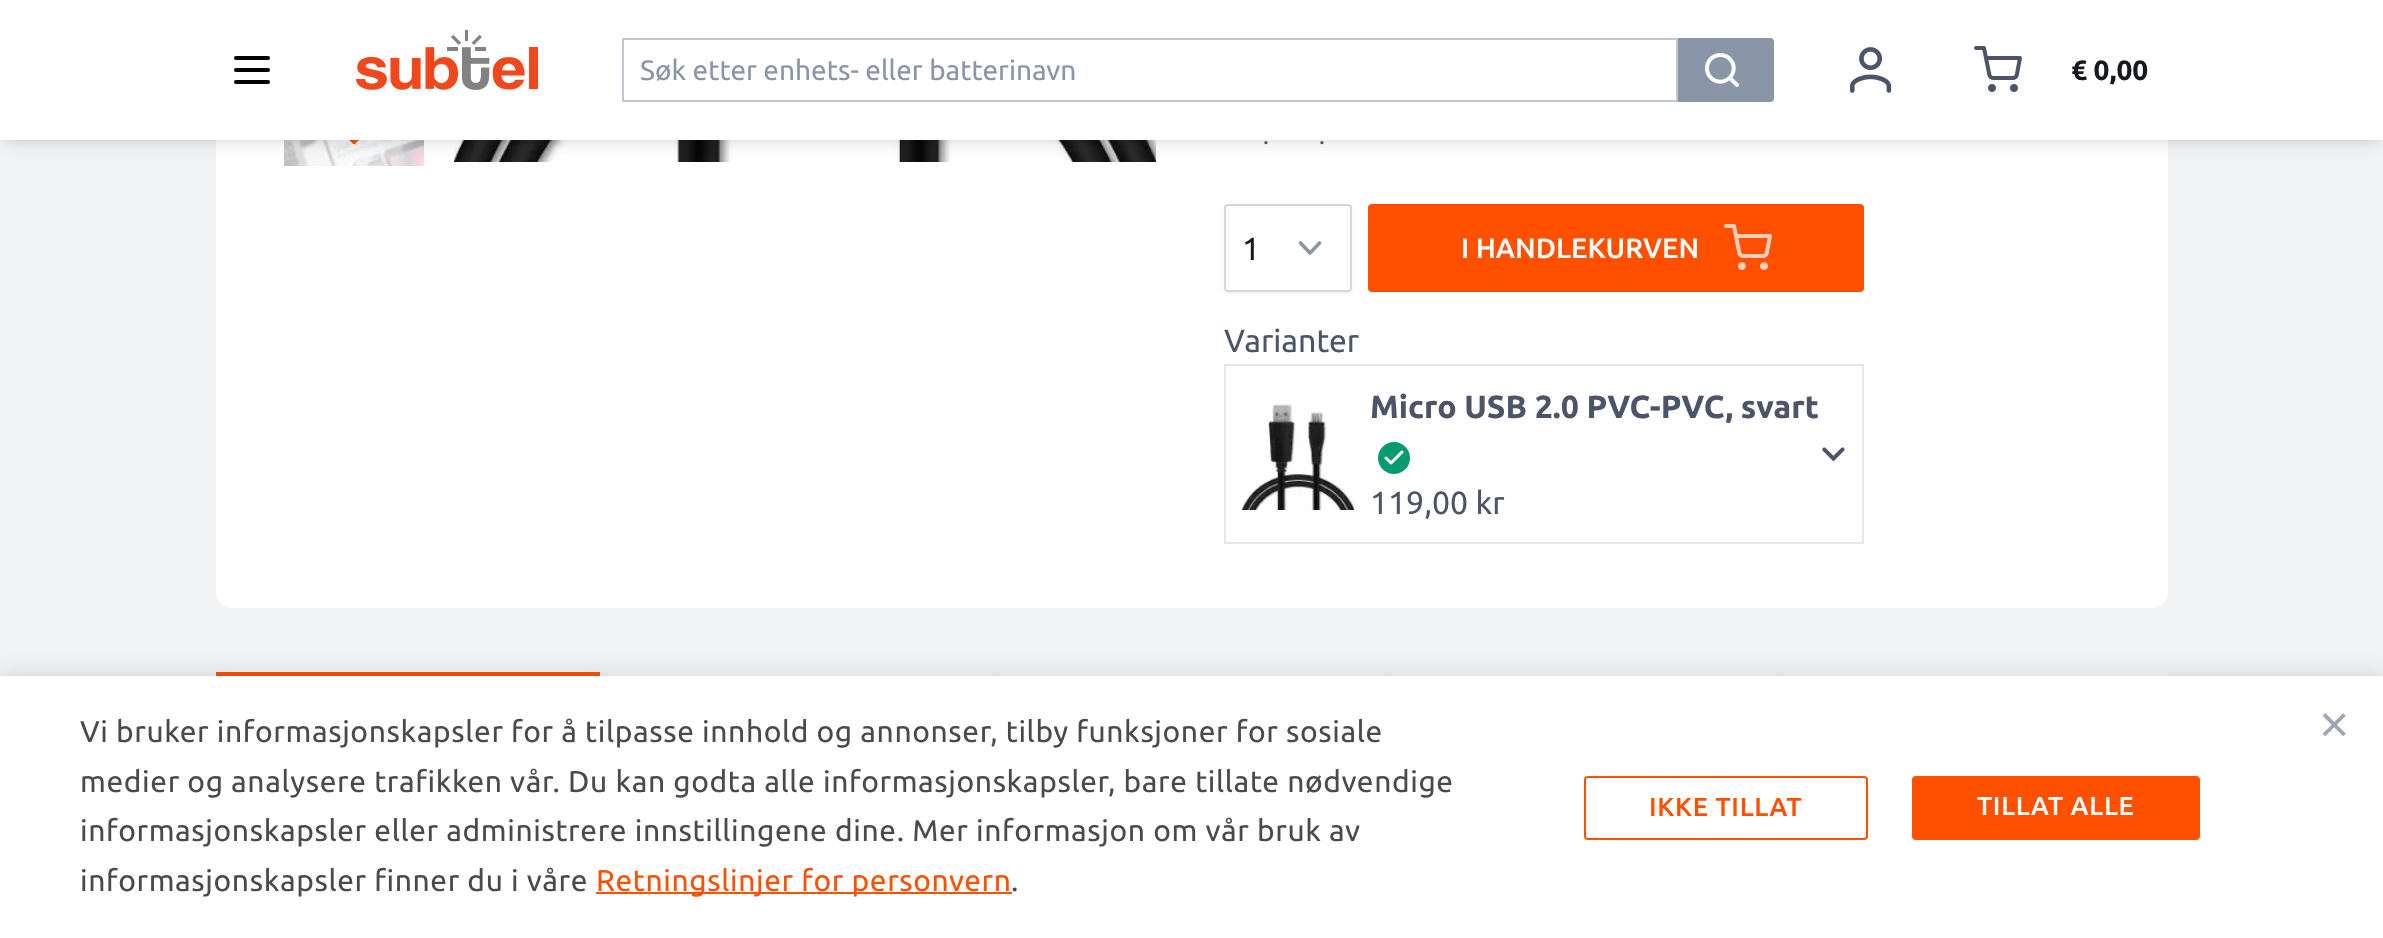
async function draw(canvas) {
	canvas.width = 2383;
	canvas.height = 938;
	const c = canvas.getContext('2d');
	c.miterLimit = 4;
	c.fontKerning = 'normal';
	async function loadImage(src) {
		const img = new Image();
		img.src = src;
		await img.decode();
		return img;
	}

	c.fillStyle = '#f1f3f5';
	c.fillRect(0, 0, 2383, 938);
	c.fillStyle = '#fff';
	c.beginPath();
	c.roundRect(216, -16, 1952, 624, 16);
	c.fill();
	c.drawImage(await loadImage('img5.png'), 284, 140, 140, 26);
	c.beginPath();
	c.moveTo(368, 128);
	c.lineTo(354, 142);
	c.lineTo(340, 128);
	c.strokeStyle = '#ff5000';
	c.lineWidth = 4;
	c.lineCap = 'round';
	c.lineJoin = 'round';
	c.stroke();
	c.drawImage(await loadImage('img6.png'), 454, 140, 702, 22);
	c.fillStyle = '#1018281a';
	c.filter = 'blur(8px)';
	c.beginPath();
	c.rect(4, 12, 2376, 132);
	c.fill();
	c.filter = 'none';
	c.fillStyle = '#1018280f';
	c.filter = 'blur(4px)';
	c.beginPath();
	c.rect(4, 8, 2376, 132);
	c.fill();
	c.filter = 'none';
	c.fillStyle = '#fff';
	c.fillRect(0, 0, 2383, 140);
	c.beginPath();
	c.moveTo(236, 58);
	c.lineTo(268, 58);
	c.moveTo(236, 70);
	c.lineTo(268, 70);
	c.moveTo(236, 82);
	c.lineTo(268, 82);
	c.strokeStyle = '#000';
	c.stroke();
	c.drawImage(await loadImage('img1.png'), 356, 30, 182, 60);
	c.strokeStyle = '#c1c8d2';
	c.lineWidth = 2;
	c.lineJoin = 'miter';
	c.strokeRect(623, 39, 1054, 62);
	c.font = '28px Ubuntu';
	c.fillStyle = '#8a96a8';
	c.fillText('Søk etter enhets- eller batterinavn', 640, 80);
	c.beginPath();
	c.roundRect(1678, 38, 96, 64, [0, 4, 4, 0]);
	c.fill();
	c.drawImage(await loadImage('img2.png'), 1705, 53, 34, 34);
	c.drawImage(await loadImage('img3.png'), 1850, 47, 42, 46);
	c.drawImage(await loadImage('img4.png'), 1974, 46, 48, 46);
	c.font = 'bold 28px Ubuntu';
	c.fillStyle = '#16181d';
	c.fillText('€ 0,00', 2071, 80);
	c.font = '24px Ubuntu';
	c.fillStyle = '#4c5567';
	c.fillText('.', 1263, 144);
	c.fillText('.', 1319, 144);
	c.fillStyle = '#0000000d';
	c.filter = 'blur(2px)';
	c.beginPath();
	c.roundRect(1224, 206, 128, 88, 4);
	c.fill();
	c.filter = 'none';
	c.fillStyle = '#fff';
	c.beginPath();
	c.roundRect(1224, 204, 128, 88, 4);
	c.fill();
	c.beginPath();
	c.moveTo(1300.5, 243);
	c.lineTo(1310, 253);
	c.lineTo(1319.5, 243);
	c.strokeStyle = '#8a96a8';
	c.lineWidth = 3.6;
	c.lineJoin = 'round';
	c.stroke();
	c.beginPath();
	c.roundRect(1225, 205, 126, 86, 3);
	c.strokeStyle = '#d3d7df';
	c.lineWidth = 2;
	c.lineJoin = 'miter';
	c.stroke();
	c.font = '32px Ubuntu';
	c.fillStyle = '#16181d';
	c.fillText('1', 1242, 260);
	c.fillStyle = '#ff5000';
	c.beginPath();
	c.roundRect(1368, 204, 496, 88, 4);
	c.fill();
	c.font = '500 28px Ubuntu';
	c.fillStyle = '#fff';
	c.fillText('I HANDLEKURVEN', 1461, 258);
	c.drawImage(await loadImage('img7.png'), 1724, 224, 48, 46);
	c.font = '32px Ubuntu';
	c.fillStyle = '#4c5567';
	c.fillText('Varianter', 1224, 352);
	c.strokeStyle = '#e4e7ec';
	c.strokeRect(1225, 365, 638, 178);
	c.drawImage(await loadImage('img8.png'), 1242, 404, 112, 106);
	c.font = 'bold 32px Ubuntu';
	c.fillText('Micro USB 2.0 PVC-PVC, svart', 1370, 418);
	c.fillStyle = '#049a72';
	c.beginPath();
	c.arc(1394, 458, 16, 0, 2 * Math.PI);
	c.fill();
	c.drawImage(await loadImage('img9.png'), 1384, 450, 20, 15);
	c.font = '32px Ubuntu';
	c.fillStyle = '#4c5567';
	c.fillText('119,00 kr', 1370, 514);
	c.drawImage(await loadImage('img10.png'), 1822, 447, 23, 15);
	for (const [x, y, w, h, color] of [
		[216, 672, 384, 4, '#ff5000'],
		[608, 672, 384, 4, '#f7f8f9'],
		[1000, 672, 384, 4, '#f7f8f9'],
		[1392, 672, 384, 4, '#f7f8f9'],
		[1784, 672, 384, 4, '#f7f8f9'],
	]) {
		c.fillStyle = color;
		c.fillRect(x, y, w, h);
	}
	c.fillStyle = '#0000001a';
	c.filter = 'blur(10px)';
	c.beginPath();
	c.rect(0, 672, 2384, 262);
	c.fill();
	c.filter = 'none';
	c.fillStyle = '#fff';
	c.fillRect(0, 676, 2383, 262);
	c.letterSpacing = '0.6px';
	c.font = '30px Ubuntu';
	c.fillStyle = '#4a4a4a';
	for (const [text, x, y] of [
		['Vi bruker informasjonskapsler for å tilpasse innhold og annonser, tilby funksjoner for sosiale', 80, 742],
		['medier og analysere trafikken vår. Du kan godta alle informasjonskapsler, bare tillate nødvendige', 80, 792],
		['informasjonskapsler eller administrere innstillingene dine. Mer informasjon om vår bruk av', 80, 841],
		['informasjonskapsler finner du i våre', 80, 891],
	]) {
		c.fillText(text, x, y);
	}
	c.fillStyle = '#ff5000';
	c.fillRect(596, 892, 416, 2);
	c.fillText('Retningslinjer for personvern', 596, 891);
	c.fillStyle = '#4a4a4a';
	c.fillText('.', 1011, 891);
	c.beginPath();
	c.roundRect(1585, 777, 282, 62, 3);
	c.strokeStyle = '#ff5000';
	c.stroke();
	c.letterSpacing = '0.75px';
	c.font = '500 26px Ubuntu';
	c.fillStyle = '#ff5000';
	c.fillText('IKKE TILLAT', 1649, 816);
	c.beginPath();
	c.roundRect(1913, 777, 286, 62, 3);
	c.fill();
	c.stroke();
	c.fillStyle = '#fff';
	c.fillText('TILLAT ALLE', 1977, 815);
	c.letterSpacing = '0px';
	c.font = '52px Liberation Sans';
	c.fillStyle = '#9ca6b5';
	c.fillText('×', 2319, 742);
}

draw(document.querySelector('canvas'));
